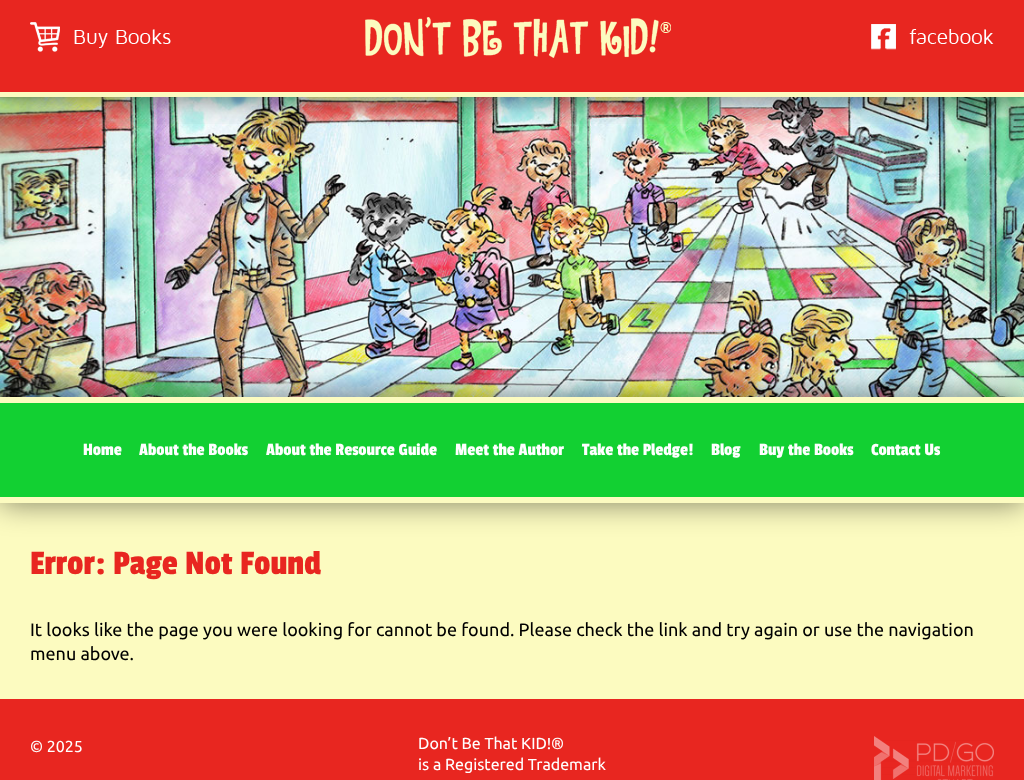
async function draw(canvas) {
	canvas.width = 1024;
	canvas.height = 780;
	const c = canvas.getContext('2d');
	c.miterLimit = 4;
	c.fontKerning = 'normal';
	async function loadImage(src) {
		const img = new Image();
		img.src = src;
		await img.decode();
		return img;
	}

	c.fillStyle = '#e82620';
	c.fillRect(0, 0, 1024, 780);
	c.drawImage(await loadImage('img4.png'), 0, 97, 1024, 300);
	c.save();
	c.beginPath();
	c.rect(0, 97, 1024, 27);
	c.clip();
	c.fillStyle = '#00000099';
	c.filter = 'blur(15px)';
	c.beginPath();
	c.rect(0, -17, 1024, 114);
	c.fill();
	c.filter = 'none';
	c.restore();
	c.fillStyle = '#fcfbc0';
	c.fillRect(0, 92, 1024, 5);
	c.drawImage(await loadImage('img1.png'), 30, 22, 141, 30);
	c.drawImage(await loadImage('img2.png'), 365, 17, 306, 41);
	c.drawImage(await loadImage('img3.png'), 871, 24, 123, 26);
	c.fillRect(0, 503, 1024, 196);
	c.fillStyle = '#00000080';
	c.filter = 'blur(15px)';
	c.beginPath();
	c.rect(0, 397, 1024, 106);
	c.fill();
	c.filter = 'none';
	for (const [x, y, w, h, color] of [
		[0, 403, 1024, 94, '#12d032'],
		[0, 397, 1024, 6, '#fcfbc0'],
		[0, 497, 1024, 6, '#fcfbc0'],
	]) {
		c.fillStyle = color;
		c.fillRect(x, y, w, h);
	}
	c.font = '18px Passion One';
	c.fillStyle = '#fff';
	for (const [text, x, y] of [
		['Home', 83, 455],
		['About the Books', 139, 455],
		['About the Resource Guide', 266, 455],
		['Meet the Author', 455, 455],
		['Take the Pledge!', 582, 455],
		['Blog', 711, 455],
		['Buy the Books', 759, 455],
		['Contact Us', 871, 455],
	]) {
		c.fillText(text, x, y);
	}
	c.font = '36px Passion One';
	c.fillStyle = '#e82620';
	c.fillText('Error: Page Not Found', 30, 574);
	c.font = '18px Ubuntu';
	c.fillStyle = '#000';
	c.fillText('It looks like the page you were looking for cannot be found. Please check the link and try again or use the navigation', 30, 636);
	c.fillText('menu above.', 30, 660);
	c.font = '16px Ubuntu';
	c.fillStyle = '#fff';
	for (const [text, x, y] of [
		['© 2025', 30, 752],
		['Don’t Be That KID!®', 418, 749],
		['is a Registered Trademark', 418, 770],
	]) {
		c.fillText(text, x, y);
	}
	c.drawImage(await loadImage('img5.png'), 874, 736, 120, 44);
}

draw(document.querySelector('canvas'));
